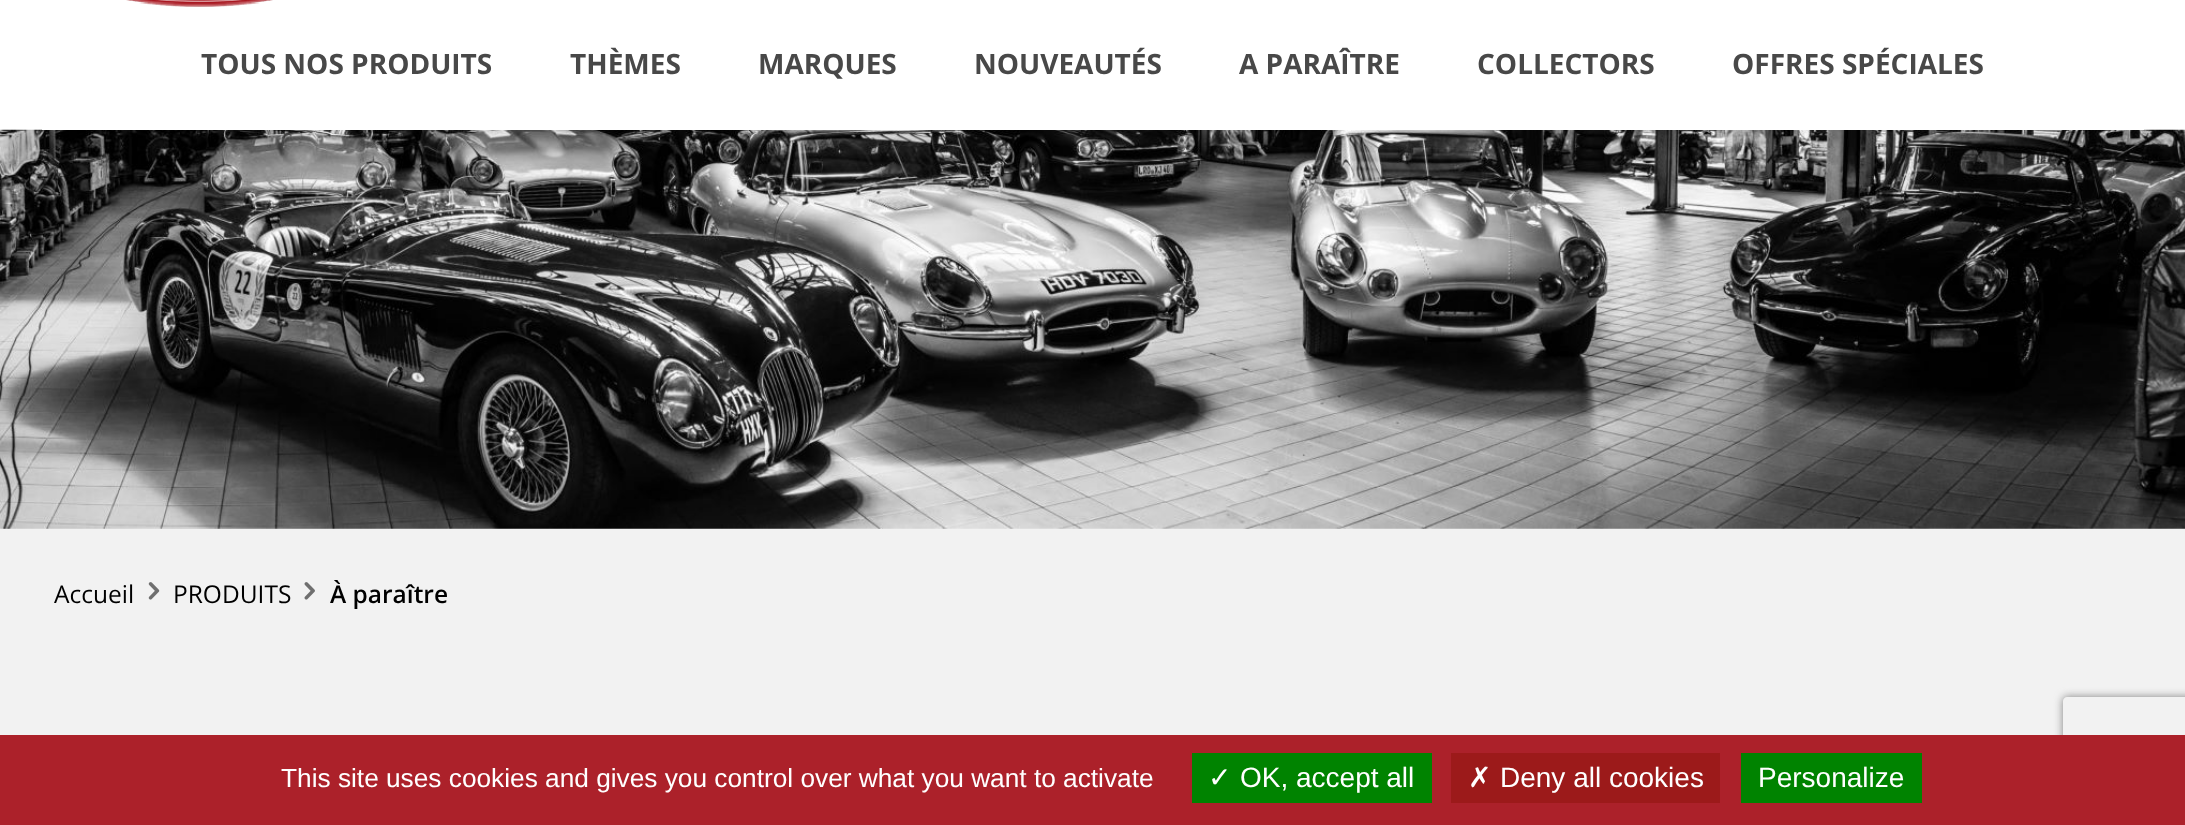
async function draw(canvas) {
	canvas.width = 2185;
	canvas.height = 825;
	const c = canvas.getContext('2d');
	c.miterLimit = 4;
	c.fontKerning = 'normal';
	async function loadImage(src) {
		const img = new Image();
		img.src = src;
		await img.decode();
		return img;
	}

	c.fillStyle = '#f2f2f2';
	c.fillRect(0, 0, 2185, 825);
	c.fillStyle = '#fff';
	c.fillRect(0, 0, 2185, 130);
	c.drawImage(await loadImage('img1.png'), 126, 0, 147, 7);
	c.drawImage(await loadImage('img2.png'), 0, 129, 2185, 400);
	c.fillRect(42, 129, 2102, 1);
	c.font = 'bold 28px Open Sans';
	c.fillStyle = '#484848';
	for (const [text, x, y] of [
		['TOUS NOS PRODUITS', 201, 74],
		['THÈMES', 570, 74],
		['MARQUES', 758, 74],
		['NOUVEAUTÉS', 974, 74],
		['A PARAÎTRE', 1239, 74],
		['COLLECTORS', 1477, 74],
		['OFFRES SPÉCIALES', 1732, 74],
	]) {
		c.fillText(text, x, y);
	}
	c.font = '24.5px Open Sans';
	c.fillStyle = '#000';
	c.fillText('Accueil', 54, 603);
	c.drawImage(await loadImage('img3.png'), 148, 582, 12, 18);
	c.fillText('PRODUITS', 173, 603);
	c.drawImage(await loadImage('img4.png'), 304, 582, 11, 18);
	c.font = '600 24.5px Open Sans';
	c.fillText('À paraître', 330, 603);
	c.save();
	c.beginPath();
	c.moveTo(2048, 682);
	c.lineTo(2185, 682);
	c.lineTo(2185, 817);
	c.lineTo(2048, 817);
	c.closePath();
	c.moveTo(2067, 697);
	c.lineTo(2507, 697);
	c.bezierCurveTo(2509, 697, 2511, 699, 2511, 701);
	c.lineTo(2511, 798);
	c.bezierCurveTo(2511, 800, 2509, 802, 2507, 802);
	c.lineTo(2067, 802);
	c.bezierCurveTo(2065, 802, 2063, 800, 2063, 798);
	c.lineTo(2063, 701);
	c.bezierCurveTo(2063, 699, 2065, 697, 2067, 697);
	c.closePath();
	c.clip('evenodd');
	c.fillStyle = '#808080';
	c.filter = 'blur(4.5px)';
	c.beginPath();
	c.roundRect(2063, 697, 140, 105, 4);
	c.fill();
	c.filter = 'none';
	c.restore();
	c.fillStyle = '#ac212a';
	c.fillRect(0, 735, 2185, 90);
	c.font = '26.25px Liberation Sans';
	c.fillStyle = '#fff';
	c.fillText('This site uses cookies and gives you control over what you want to activate', 281, 787);
	c.fillStyle = '#008300';
	c.fillRect(1192, 753, 240, 50);
	c.font = '28px DejaVu Sans';
	c.fillStyle = '#fff';
	c.fillText('✓', 1208, 787);
	c.font = '28px Liberation Sans';
	c.fillText('OK, accept all', 1240, 787);
	c.fillStyle = '#9c1a1a';
	c.fillRect(1451, 753, 269, 50);
	c.font = '28px DejaVu Sans';
	c.fillStyle = '#fff';
	c.fillText('✗', 1468, 787);
	c.font = '28px Liberation Sans';
	c.fillText('Deny all cookies', 1500, 787);
	c.fillStyle = '#008300';
	c.fillRect(1741, 753, 181, 50);
	c.fillStyle = '#fff';
	c.fillText('Personalize', 1758, 787);
}

draw(document.querySelector('canvas'));
